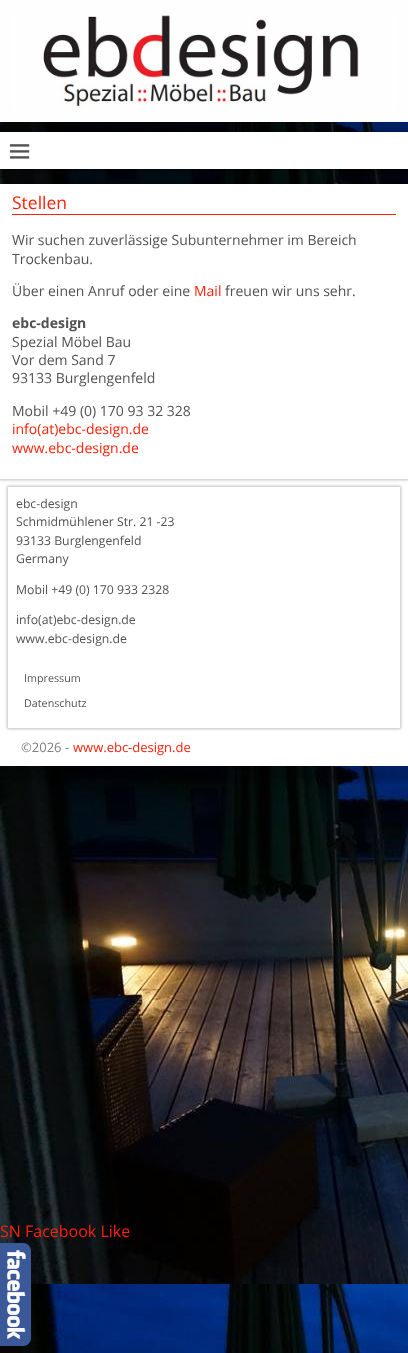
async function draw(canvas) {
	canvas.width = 408;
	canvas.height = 1353;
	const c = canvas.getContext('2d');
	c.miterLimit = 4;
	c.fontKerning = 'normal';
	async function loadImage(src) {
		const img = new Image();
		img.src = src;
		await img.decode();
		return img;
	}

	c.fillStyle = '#fff';
	c.fillRect(0, 0, 408, 1353);
	c.drawImage(await loadImage('img1.png'), 0, 122, 408, 1231);
	c.save();
	c.beginPath();
	c.rect(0, 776, 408, 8);
	c.clip();
	c.fillStyle = '#00000040';
	c.filter = 'blur(3px)';
	c.beginPath();
	c.rect(-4, -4, 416, 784);
	c.fill();
	c.filter = 'none';
	c.restore();
	c.fillStyle = '#00000033';
	c.fillRect(0, 122, 408, 654);
	c.drawImage(await loadImage('img2.png'), 0, 0, 408, 122);
	c.fillStyle = '#00000040';
	c.filter = 'blur(1.5px)';
	c.beginPath();
	c.rect(-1, 131, 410, 39);
	c.fill();
	c.filter = 'none';
	c.fillStyle = '#fff';
	c.fillRect(0, 132, 408, 37);
	c.drawImage(await loadImage('img3.png'), 10, 144, 20, 15);
	c.fillRect(0, 184, 408, 582);
	c.save();
	c.beginPath();
	c.moveTo(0, 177);
	c.lineTo(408, 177);
	c.lineTo(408, 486);
	c.lineTo(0, 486);
	c.closePath();
	c.moveTo(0, 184);
	c.lineTo(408, 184);
	c.lineTo(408, 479);
	c.lineTo(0, 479);
	c.closePath();
	c.clip('evenodd');
	c.fillStyle = '#00000040';
	c.filter = 'blur(1.5px)';
	c.beginPath();
	c.rect(-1, 183, 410, 297);
	c.fill();
	c.filter = 'none';
	c.restore();
	c.fillStyle = '#ff2008';
	c.fillRect(12, 214, 384, 1);
	c.font = '17.5px Open Sans';
	c.fillText('Stellen', 12, 209);
	c.font = '14px Open Sans';
	c.fillStyle = '#525252';
	for (const [text, x, y] of [
		['Wir suchen zuverlässige Subunternehmer im Bereich', 12, 245],
		['Trockenbau.', 12, 264],
		['Über einen Anruf oder eine', 12, 296],
	]) {
		c.fillText(text, x, y);
	}
	c.fillStyle = '#ff2008';
	c.fillText('Mail', 194, 296);
	c.fillStyle = '#525252';
	c.fillText('freuen wir uns sehr.', 225, 296);
	c.font = 'bold 14px Open Sans';
	c.fillText('ebc-design', 12, 328);
	c.font = '14px Open Sans';
	for (const [text, x, y] of [
		['Spezial Möbel Bau', 12, 347],
		['Vor dem Sand 7', 12, 365],
		['93133 Burglengenfeld', 12, 383],
		['Mobil +49 (0) 170 93 32 328', 12, 416],
	]) {
		c.fillText(text, x, y);
	}
	c.fillStyle = '#ff2008';
	c.fillText('info(at)ebc-design.de', 12, 434);
	c.fillText('www.ebc-design.de', 12, 453);
	c.save();
	c.beginPath();
	c.moveTo(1, 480);
	c.lineTo(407, 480);
	c.lineTo(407, 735);
	c.lineTo(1, 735);
	c.closePath();
	c.moveTo(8, 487);
	c.lineTo(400, 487);
	c.lineTo(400, 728);
	c.lineTo(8, 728);
	c.closePath();
	c.clip('evenodd');
	c.fillStyle = '#00000040';
	c.filter = 'blur(1.5px)';
	c.beginPath();
	c.rect(7, 486, 394, 243);
	c.fill();
	c.filter = 'none';
	c.restore();
	c.font = '12.25px Open Sans';
	c.fillStyle = '#525252';
	for (const [text, x, y] of [
		['ebc-design', 16, 508],
		['Schmidmühlener Str. 21 -23', 16, 526],
		['93133 Burglengenfeld', 16, 545],
		['Germany', 16, 563],
		['Mobil +49 (0) 170 933 2328', 16, 594],
		['info(at)ebc-design.de', 16, 624],
		['www.ebc-design.de', 16, 643],
	]) {
		c.fillText(text, x, y);
	}
	c.font = '10.75px Open Sans';
	c.fillText('Impressum', 24, 682);
	c.fillText('Datenschutz', 24, 707);
	c.font = '13px Open Sans';
	c.fillStyle = '#808080';
	c.fillText('©2026 -', 21, 752);
	c.fillStyle = '#ff2008';
	c.fillText('www.ebc-design.de', 73, 752);
	c.font = '16px Open Sans';
	c.fillText('SN Facebook Like', 0, 1237);
	c.drawImage(await loadImage('img4.png'), 0, 1243, 31, 103);
}

draw(document.querySelector('canvas'));
